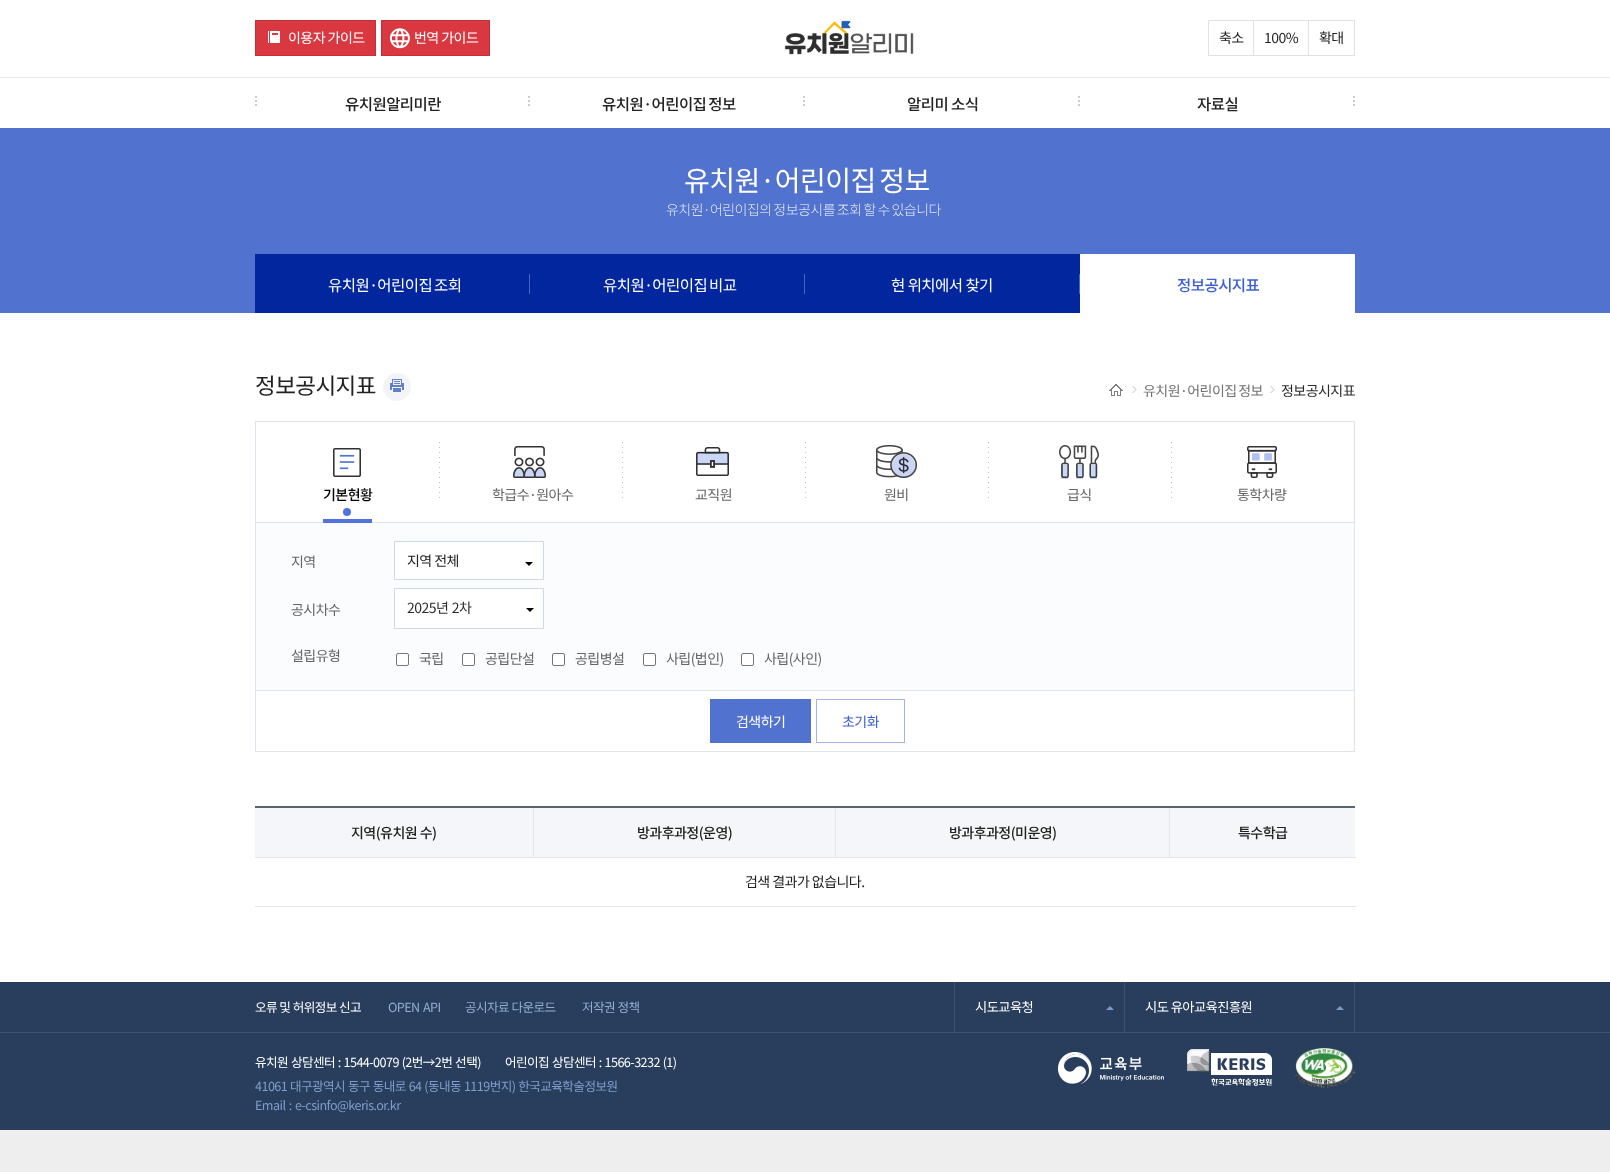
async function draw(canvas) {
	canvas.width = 1610;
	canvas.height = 1172;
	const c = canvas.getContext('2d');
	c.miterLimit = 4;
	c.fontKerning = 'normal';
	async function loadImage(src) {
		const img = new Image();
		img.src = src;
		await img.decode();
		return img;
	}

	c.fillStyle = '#eee';
	c.fillRect(0, 0, 1610, 1172);
	for (const [x, y, w, h, color] of [
		[0, 0, 1610, 77, '#fff'],
		[0, 77, 1610, 1, '#e8e8e8'],
		[256, 21, 119, 34, '#da3841'],
	]) {
		c.fillStyle = color;
		c.fillRect(x, y, w, h);
	}
	c.drawImage(await loadImage('img1.png'), 268, 31, 12, 12);
	c.strokeStyle = '#c33038';
	c.strokeRect(255.5, 20.5, 120, 35);
	c.letterSpacing = '-0.55px';
	c.font = '14px Noto Sans KR';
	c.fillStyle = '#fff';
	c.fillText('이용자 가이드', 288, 43);
	c.fillStyle = '#da3841';
	c.fillRect(382, 21, 107, 34);
	c.drawImage(await loadImage('img2.png'), 389, 28, 21, 21);
	c.strokeRect(381.5, 20.5, 108, 35);
	c.fillStyle = '#fff';
	c.fillText('번역 가이드', 414, 43);
	c.drawImage(await loadImage('img3.png'), 784, 20, 130, 35);
	c.strokeStyle = '#e1e1e1';
	c.strokeRect(1208.5, 20.5, 45, 35);
	c.fillStyle = '#222';
	c.fillText('축소', 1219, 43);
	c.strokeRect(1253.5, 20.5, 55, 35);
	c.fillText('100%', 1264, 43);
	c.strokeRect(1308.5, 20.5, 46, 35);
	c.fillText('확대', 1319, 43);
	c.fillStyle = '#fff';
	c.fillRect(0, 78, 1610, 50);
	c.beginPath();
	c.moveTo(256, 96);
	c.lineTo(256, 98);
	c.moveTo(256, 100);
	c.lineTo(256, 102);
	c.moveTo(256, 104);
	c.lineTo(256, 106);
	c.strokeStyle = '#ccc';
	c.lineWidth = 2;
	c.stroke();
	c.font = '500 15.5px Noto Sans KR';
	c.fillStyle = '#222';
	c.fillText('유치원알리미란', 345, 110);
	c.beginPath();
	c.moveTo(529, 96);
	c.lineTo(529, 98);
	c.moveTo(529, 100);
	c.lineTo(529, 102);
	c.moveTo(529, 104);
	c.lineTo(529, 106);
	c.stroke();
	c.wordSpacing = '-1px';
	c.fillText('유치원·어린이집 정보', 602, 110);
	c.beginPath();
	c.moveTo(804, 96);
	c.lineTo(804, 98);
	c.moveTo(804, 100);
	c.lineTo(804, 102);
	c.moveTo(804, 104);
	c.lineTo(804, 106);
	c.stroke();
	c.wordSpacing = '0px';
	c.fillText('알리미 소식', 907, 110);
	c.beginPath();
	c.moveTo(1079, 96);
	c.lineTo(1079, 98);
	c.moveTo(1079, 100);
	c.lineTo(1079, 102);
	c.moveTo(1079, 104);
	c.lineTo(1079, 106);
	c.stroke();
	c.fillText('자료실', 1197, 110);
	c.beginPath();
	c.moveTo(1354, 96);
	c.lineTo(1354, 98);
	c.moveTo(1354, 100);
	c.lineTo(1354, 102);
	c.moveTo(1354, 104);
	c.lineTo(1354, 106);
	c.stroke();
	c.fillStyle = '#5172ce';
	c.fillRect(0, 128, 1610, 185);
	c.wordSpacing = '-2px';
	c.font = '28px Noto Sans KR';
	c.fillStyle = '#fff';
	c.fillText('유치원·어린이집 정보', 684, 191);
	c.wordSpacing = '-0.75px';
	c.font = '200 14px Noto Sans KR';
	c.fillText('유치원·어린이집의 정보공시를 조회 할 수 있습니다', 666, 215);
	c.fillStyle = '#02269e';
	c.fillRect(255, 254, 825, 59);
	c.wordSpacing = '-1px';
	c.font = '15.5px Noto Sans KR';
	c.fillStyle = '#fff';
	c.fillText('유치원·어린이집 조회', 328, 291);
	c.fillStyle = '#4864c1';
	c.fillRect(529, 274, 1, 20);
	c.fillStyle = '#fff';
	c.fillText('유치원·어린이집 비교', 603, 291);
	c.fillStyle = '#4864c1';
	c.fillRect(804, 274, 1, 20);
	c.wordSpacing = '0px';
	c.fillStyle = '#fff';
	c.fillText('현 위치에서 찾기', 891, 291);
	c.fillStyle = '#4864c1';
	c.fillRect(1079, 274, 1, 20);
	c.fillStyle = '#fff';
	c.fillRect(1080, 254, 275, 59);
	c.font = '500 15.5px Noto Sans KR';
	c.fillStyle = '#3c5fd3';
	c.fillText('정보공시지표', 1177, 291);
	c.fillStyle = '#fff';
	c.fillRect(0, 313, 1610, 669);
	c.font = '22.5px Noto Sans KR';
	c.fillStyle = '#222';
	c.fillText('정보공시지표', 255, 394);
	c.fillStyle = '#f2f4fa';
	c.beginPath();
	c.arc(397, 387, 14, 0, 2 * Math.PI);
	c.fill();
	c.drawImage(await loadImage('img4.png'), 390, 379, 14, 13);
	c.drawImage(await loadImage('img5.png'), 1109, 384, 14, 12);
	c.drawImage(await loadImage('img6.png'), 1132, 386, 5, 7);
	c.wordSpacing = '-1px';
	c.font = '14px Noto Sans KR';
	c.fillStyle = '#737272';
	c.fillText('유치원·어린이집 정보', 1143, 396);
	c.drawImage(await loadImage('img6.png'), 1270, 386, 5, 7);
	c.wordSpacing = '0px';
	c.fillStyle = '#2b2b2b';
	c.fillText('정보공시지표', 1281, 396);
	c.strokeStyle = '#dfe3ee';
	c.lineWidth = 1;
	c.strokeRect(255.5, 421.5, 1099, 101);
	c.drawImage(await loadImage('img7.png'), 333, 448, 28, 29);
	c.fillStyle = '#5172df';
	c.fillRect(323, 519, 49, 4);
	c.font = '500 14px Noto Sans KR';
	c.fillStyle = '#000';
	c.fillText('기본현황', 323, 500);
	c.fillStyle = '#5172df';
	c.beginPath();
	c.arc(347, 512, 4, 0, 2 * Math.PI);
	c.fill();
	c.drawImage(await loadImage('img8.png'), 439, 442, 1, 56);
	c.drawImage(await loadImage('img9.png'), 513, 446, 33, 32);
	c.font = '14px Noto Sans KR';
	c.fillStyle = '#666';
	c.fillText('학급수·원아수', 492, 500);
	c.drawImage(await loadImage('img8.png'), 622, 442, 1, 56);
	c.drawImage(await loadImage('img10.png'), 696, 447, 33, 29);
	c.fillText('교직원', 695, 500);
	c.drawImage(await loadImage('img8.png'), 805, 442, 1, 56);
	c.drawImage(await loadImage('img11.png'), 876, 445, 41, 33);
	c.fillText('원비', 884, 500);
	c.drawImage(await loadImage('img8.png'), 988, 442, 1, 56);
	c.drawImage(await loadImage('img12.png'), 1059, 445, 40, 34);
	c.fillText('급식', 1067, 500);
	c.drawImage(await loadImage('img8.png'), 1171, 442, 1, 56);
	c.drawImage(await loadImage('img13.png'), 1247, 446, 30, 32);
	c.fillText('통학차량', 1237, 500);
	for (const [x, y, w, h, color] of [
		[256, 523, 1098, 167, '#fbfcfe'],
		[1354, 522, 1, 168, '#dfe3ee'],
		[255, 522, 1, 168, '#dfe3ee'],
	]) {
		c.fillStyle = color;
		c.fillRect(x, y, w, h);
	}
	c.fillStyle = '#666';
	c.fillText('지역', 291, 567);
	c.fillStyle = '#fff';
	c.beginPath();
	c.rect(394.5, 541.5, 149, 38);
	c.fill();
	c.strokeStyle = '#cddaee';
	c.stroke();
	c.fillStyle = '#222';
	c.fillText('지역 전체', 407, 566);
	c.fillStyle = '#000';
	c.beginPath();
	c.moveTo(525, 562);
	c.lineTo(533, 562);
	c.lineTo(529, 566);
	c.closePath();
	c.fill();
	c.fillStyle = '#666';
	c.fillText('공시차수', 291, 615);
	c.fillStyle = '#fff';
	c.beginPath();
	c.rect(394.5, 588.5, 149, 40);
	c.fill();
	c.stroke();
	c.wordSpacing = '1px';
	c.fillStyle = '#2b2b2b';
	c.fillText('2025년 2차', 407, 613);
	c.fillStyle = '#000';
	c.beginPath();
	c.moveTo(526, 608);
	c.lineTo(534, 608);
	c.lineTo(530, 612);
	c.closePath();
	c.fill();
	c.wordSpacing = '0px';
	c.fillStyle = '#666';
	c.fillText('설립유형', 291, 661);
	c.fillStyle = '#fff';
	c.beginPath();
	c.roundRect(396.5, 653.5, 12, 12, 1.5);
	c.fill();
	c.strokeStyle = '#767676';
	c.stroke();
	c.fillStyle = '#666';
	c.fillText('국립', 419, 664);
	c.fillStyle = '#fff';
	c.beginPath();
	c.roundRect(462.5, 653.5, 12, 12, 1.5);
	c.fill();
	c.stroke();
	c.fillStyle = '#666';
	c.fillText('공립단설', 485, 664);
	c.fillStyle = '#fff';
	c.beginPath();
	c.roundRect(552.5, 653.5, 12, 12, 1.5);
	c.fill();
	c.stroke();
	c.fillStyle = '#666';
	c.fillText('공립병설', 575, 664);
	c.fillStyle = '#fff';
	c.beginPath();
	c.roundRect(643.5, 653.5, 12, 12, 1.5);
	c.fill();
	c.stroke();
	c.fillStyle = '#666';
	c.fillText('사립(법인)', 666, 664);
	c.fillStyle = '#fff';
	c.beginPath();
	c.roundRect(741.5, 653.5, 12, 12, 1.5);
	c.fill();
	c.stroke();
	c.fillStyle = '#666';
	c.fillText('사립(사인)', 764, 664);
	c.strokeStyle = '#dfe3ee';
	c.strokeRect(255.5, 690.5, 1099, 61);
	c.fillStyle = '#5172ce';
	c.fillRect(710, 699, 101, 44);
	c.fillStyle = '#fff';
	c.fillText('검색하기', 736, 727);
	c.strokeStyle = '#a3b3e9';
	c.strokeRect(816.5, 699.5, 88, 43);
	c.fillStyle = '#3c5fd3';
	c.fillText('초기화', 842, 727);
	for (const [x, y, w, h, color] of [
		[255, 806, 1100, 2, '#58656e'],
		[255, 808, 278, 49, '#f5f6f9'],
		[1169, 857, 187, 1, '#e4e6ea'],
		[1169, 808, 1, 50, '#e4e6ea'],
		[835, 857, 335, 1, '#e4e6ea'],
		[835, 808, 1, 50, '#e4e6ea'],
		[533, 857, 303, 1, '#e4e6ea'],
		[533, 808, 1, 50, '#e4e6ea'],
		[255, 857, 279, 1, '#e4e6ea'],
	]) {
		c.fillStyle = color;
		c.fillRect(x, y, w, h);
	}
	c.font = '500 14px Noto Sans KR';
	c.fillStyle = '#222';
	c.fillText('지역(유치원 수)', 351, 838);
	c.fillStyle = '#f5f6f9';
	c.fillRect(534, 808, 301, 49);
	c.fillStyle = '#222';
	c.fillText('방과후과정(운영)', 637, 838);
	c.fillStyle = '#f5f6f9';
	c.fillRect(836, 808, 333, 49);
	c.fillStyle = '#222';
	c.fillText('방과후과정(미운영)', 949, 838);
	c.fillStyle = '#f5f6f9';
	c.fillRect(1170, 808, 185, 49);
	c.fillStyle = '#222';
	c.fillText('특수학급', 1238, 838);
	c.fillStyle = '#e4e6ea';
	c.fillRect(255, 906, 1101, 1);
	c.font = '14px Noto Sans KR';
	c.fillStyle = '#222';
	c.fillText('검색 결과가 없습니다.', 745, 887);
	c.fillStyle = '#293e5d';
	c.fillRect(0, 982, 1610, 148);
	c.fillStyle = '#3f526e';
	c.fillRect(0, 1032, 1610, 1);
	c.font = '12.6px Noto Sans KR';
	c.fillStyle = '#fff';
	c.fillText('오류 및 허위정보 신고', 255, 1012);
	c.wordSpacing = '1px';
	c.fillStyle = '#93acd3';
	c.fillText('OPEN API', 388, 1012);
	c.wordSpacing = '0px';
	c.fillText('공시자료 다운로드', 465, 1012);
	c.fillText('저작권 정책', 582, 1012);
	c.fillStyle = '#3f526e';
	c.fillRect(1354, 982, 1, 50);
	c.fillRect(954, 982, 1, 50);
	c.font = '13.25px Noto Sans KR';
	c.fillStyle = '#fff';
	c.fillText('시도교육청', 975, 1012);
	c.fillStyle = '#779dcc';
	c.beginPath();
	c.moveTo(1114, 1010);
	c.lineTo(1106, 1010);
	c.lineTo(1110, 1006);
	c.closePath();
	c.fill();
	c.fillStyle = '#3f526e';
	c.fillRect(1124, 982, 1, 50);
	c.fillStyle = '#fff';
	c.fillText('시도 유아교육진흥원', 1145, 1012);
	c.fillStyle = '#779dcc';
	c.beginPath();
	c.moveTo(1344, 1010);
	c.lineTo(1336, 1010);
	c.lineTo(1340, 1006);
	c.closePath();
	c.fill();
	c.wordSpacing = '0.5px';
	c.font = '12.6px Noto Sans KR';
	c.fillStyle = '#fff';
	c.fillText('유치원 상담센터 : 1544-0079 (2번→2번 선택)', 255, 1067);
	c.fillText('어린이집 상담센터 : 1566-3232 (1)', 505, 1067);
	c.drawImage(await loadImage('img14.png'), 1058, 1052, 106, 32);
	c.drawImage(await loadImage('img15.png'), 1187, 1049, 85, 37);
	c.drawImage(await loadImage('img16.png'), 1295, 1048, 60, 40);
	c.fillStyle = '#7e9dcc';
	c.fillText('41061 대구광역시 동구 동내로 64 (동내동 1119번지) 한국교육학술정보원', 255, 1091);
	c.wordSpacing = '1px';
	c.fillText('Email : e-csinfo@keris.or.kr', 255, 1110);
}

draw(document.querySelector('canvas'));
